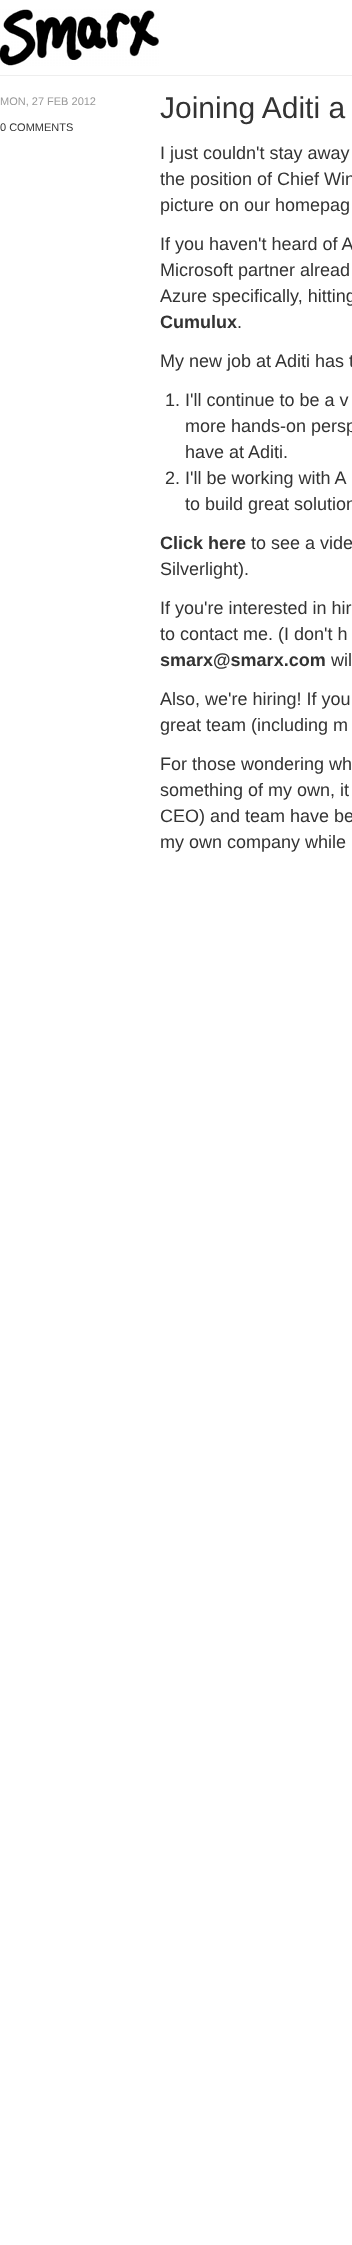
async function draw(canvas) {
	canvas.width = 352;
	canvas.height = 2245;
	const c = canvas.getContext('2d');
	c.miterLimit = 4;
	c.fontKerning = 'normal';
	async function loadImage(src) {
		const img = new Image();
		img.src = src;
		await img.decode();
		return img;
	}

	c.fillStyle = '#fff';
	c.fillRect(0, 0, 352, 2245);
	c.fillStyle = '#eee';
	c.fillRect(0, 75, 352, 1);
	c.drawImage(await loadImage('img1.png'), 0, 9, 159, 57);
	c.font = '11px Liberation Sans';
	c.fillStyle = '#999';
	c.fillText('MON, 27 FEB 2012', 0, 105);
	c.fillStyle = '#333';
	c.fillText('0 COMMENTS', 0, 131);
	c.font = '30px Liberation Sans';
	c.fillText('Joining Aditi a', 160, 118);
	c.font = '18px Liberation Sans';
	for (const [text, x, y] of [
		['I just couldn\'t stay away', 160, 159],
		['the position of Chief Win', 160, 185],
		['picture on our homepag', 160, 211],
		['If you haven\'t heard of A', 160, 250],
		['Microsoft partner alread', 160, 276],
		['Azure specifically, hitting', 160, 302],
	]) {
		c.fillText(text, x, y);
	}
	c.font = 'bold 18px Liberation Sans';
	c.fillText('Cumulux', 160, 328);
	c.font = '18px Liberation Sans';
	for (const [text, x, y] of [
		['.', 237, 328],
		['My new job at Aditi has t', 160, 367],
		['1. I\'ll continue to be a v', 165, 406],
		['more hands-on persp', 185, 432],
		['have at Aditi.', 185, 458],
		['2. I\'ll be working with A', 165, 484],
		['to build great solution', 185, 510],
	]) {
		c.fillText(text, x, y);
	}
	c.font = 'bold 18px Liberation Sans';
	c.fillText('Click here', 160, 549);
	c.font = '18px Liberation Sans';
	for (const [text, x, y] of [
		['to see a vide', 251, 549],
		['Silverlight).', 160, 575],
		['If you\'re interested in hir', 160, 614],
		['to contact me. (I don\'t h', 160, 640],
	]) {
		c.fillText(text, x, y);
	}
	c.font = 'bold 18px Liberation Sans';
	c.fillText('smarx@smarx.com', 160, 666);
	c.font = '18px Liberation Sans';
	for (const [text, x, y] of [
		['wil', 331, 666],
		['Also, we\'re hiring! If you', 160, 705],
		['great team (including m', 160, 731],
		['For those wondering wh', 160, 770],
		['something of my own, it', 160, 796],
		['CEO) and team have be', 160, 822],
		['my own company while', 160, 848],
	]) {
		c.fillText(text, x, y);
	}
}

draw(document.querySelector('canvas'));
